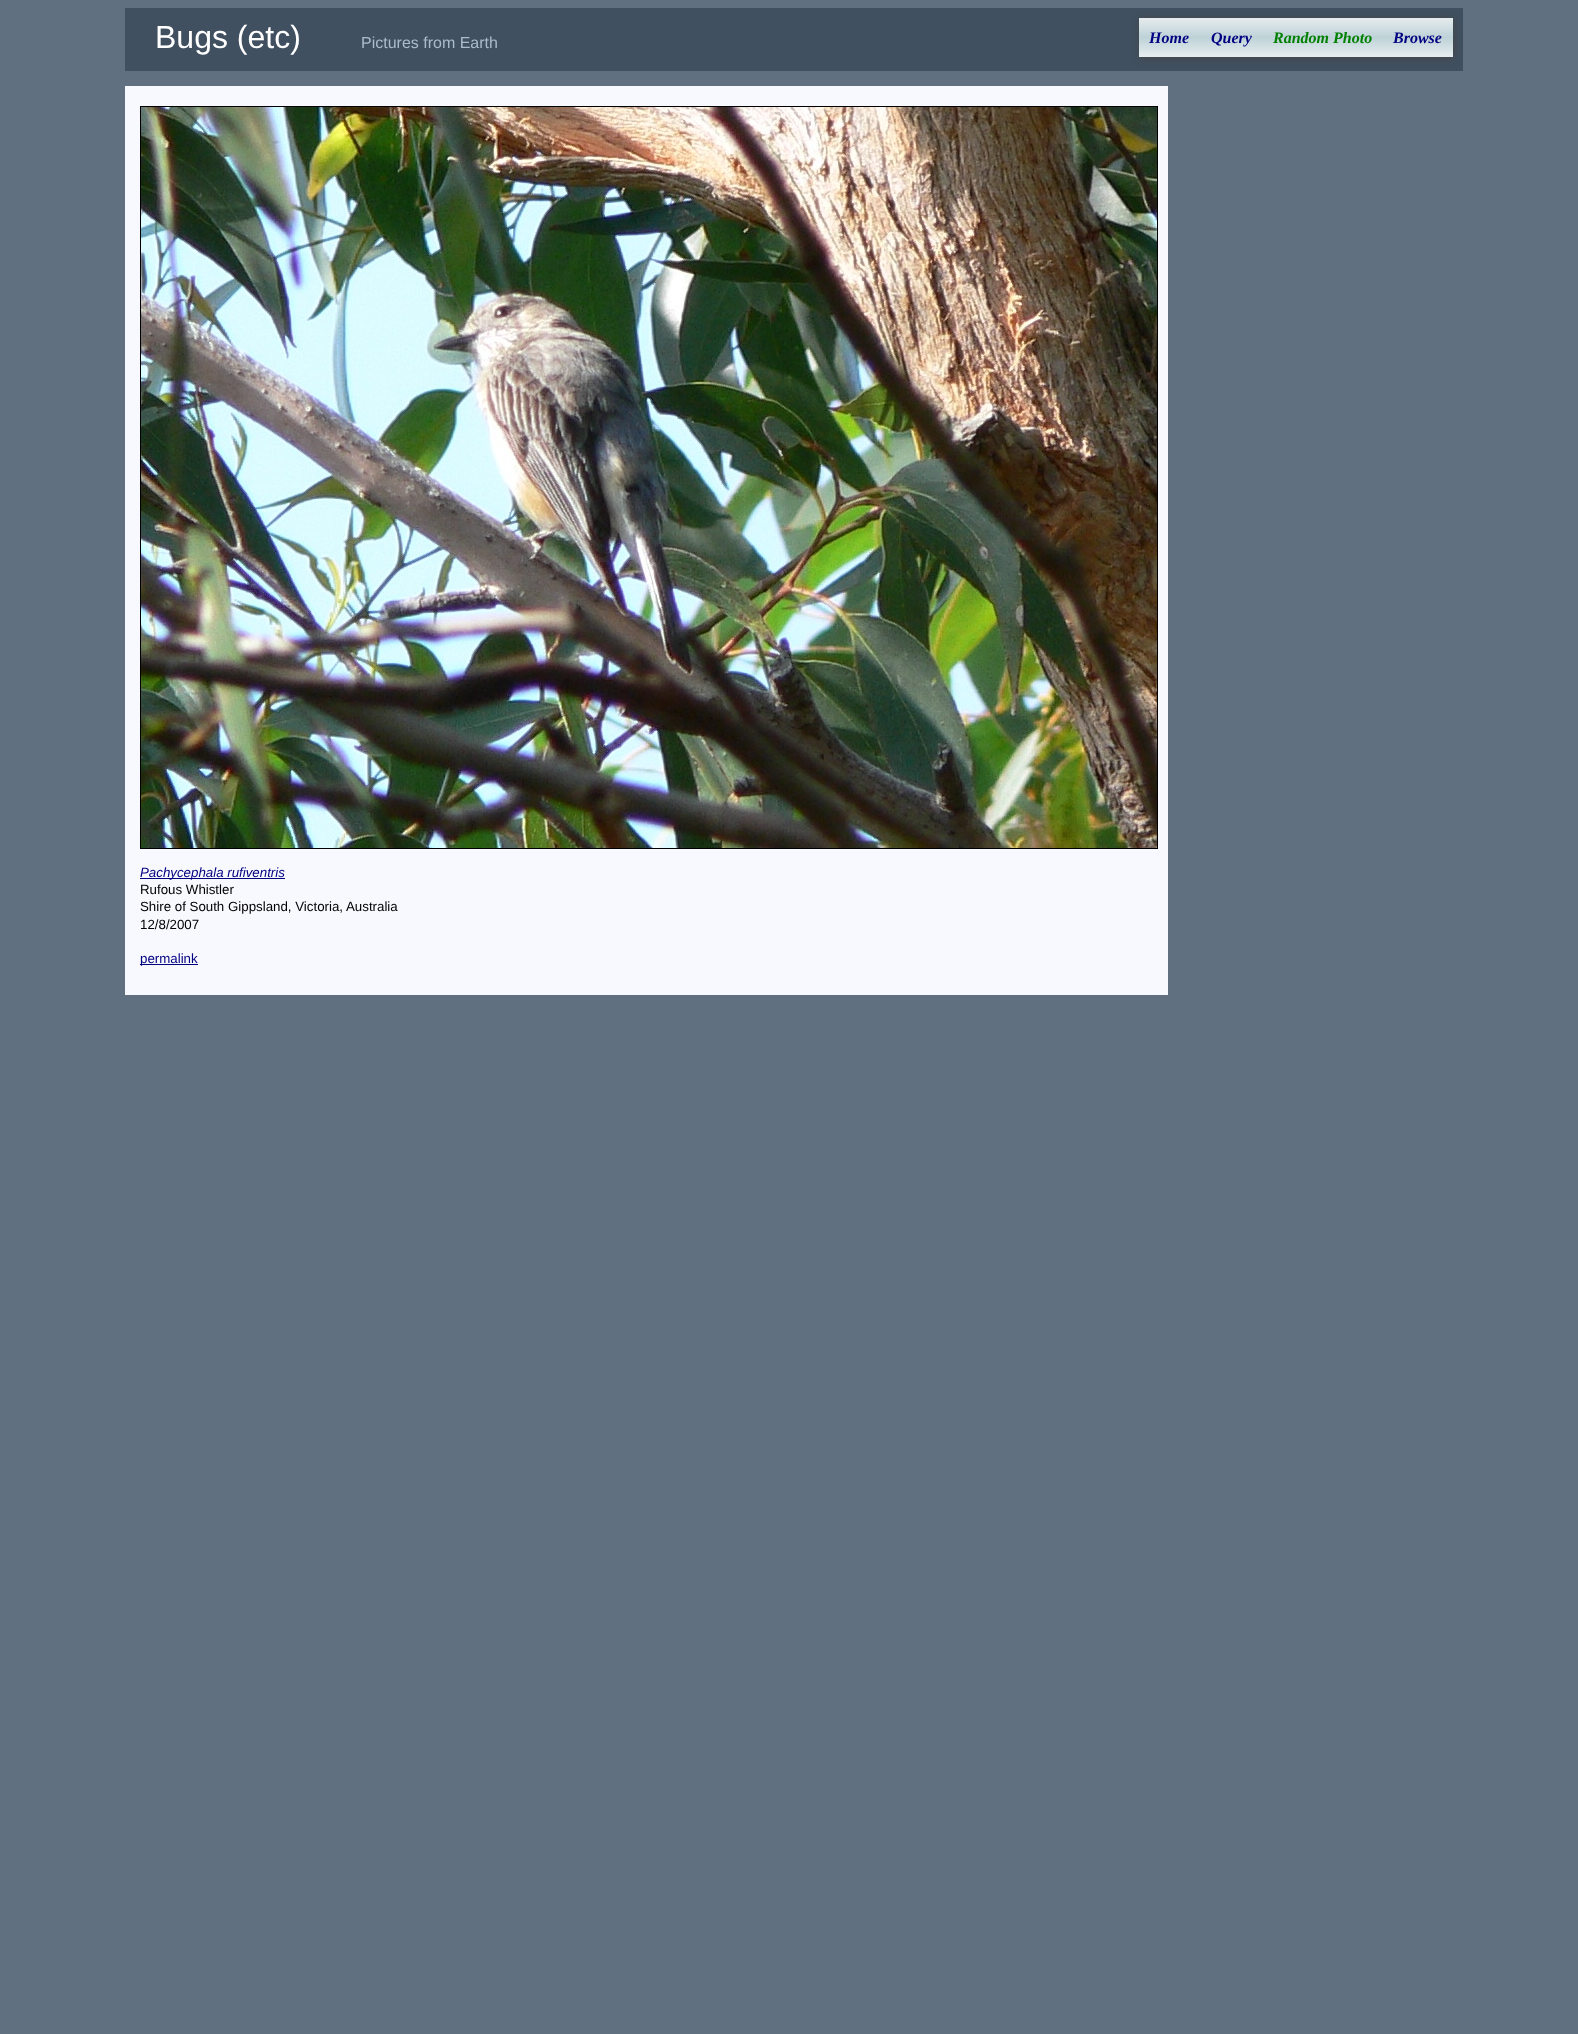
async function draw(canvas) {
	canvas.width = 1578;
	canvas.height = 2034;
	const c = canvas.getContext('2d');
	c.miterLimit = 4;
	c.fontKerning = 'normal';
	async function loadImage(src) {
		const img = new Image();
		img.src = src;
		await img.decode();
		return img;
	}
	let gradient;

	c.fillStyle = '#607080';
	c.fillRect(0, 0, 1578, 2034);
	c.fillStyle = '#405060';
	c.fillRect(125, 8, 1338, 63);
	c.font = '32px Liberation Sans';
	c.fillStyle = '#fff';
	c.fillText('Bugs (etc)', 155, 48);
	c.font = '16px Liberation Sans';
	c.fillStyle = '#abc';
	c.fillText('Pictures from Earth', 361, 48);
	c.fillStyle = '#444';
	c.filter = 'blur(4px)';
	c.beginPath();
	c.rect(1140, 19, 314, 39);
	c.fill();
	c.filter = 'none';
	gradient = c.createLinearGradient(1296, 18, 1296, 57);
	gradient.addColorStop(0, '#e6ecee');
	gradient.addColorStop(0.5, '#bdd2d7');
	gradient.addColorStop(1, '#e8eef0');
	c.fillStyle = gradient;
	c.fillRect(1139, 18, 314, 39);
	c.font = 'italic bold 16px Liberation Serif';
	c.fillStyle = '#000080';
	c.fillText('Home', 1149, 43);
	c.fillText('Query', 1211, 43);
	c.fillStyle = '#008000';
	c.fillText('Random Photo', 1273, 43);
	c.fillStyle = '#000080';
	c.fillText('Browse', 1393, 43);
	c.fillStyle = '#f8f8ff';
	c.fillRect(125, 86, 1043, 909);
	c.strokeStyle = '#000';
	c.strokeRect(140.5, 106.5, 1017, 742);
	c.drawImage(await loadImage('img1.png'), 141, 107, 1016, 741);
	c.fillStyle = '#000080';
	c.fillRect(140, 878, 145, 1);
	c.font = 'italic 13.3px Liberation Sans';
	c.fillText('Pachycephala rufiventris', 140, 877);
	c.font = '13.3px Liberation Sans';
	c.fillStyle = '#000';
	for (const [text, x, y] of [
		['Rufous Whistler', 140, 894],
		['Shire of South Gippsland, Victoria, Australia', 140, 911],
		['12/8/2007', 140, 929],
	]) {
		c.fillText(text, x, y);
	}
	c.fillStyle = '#000080';
	c.fillRect(140, 964, 58, 1);
	c.fillText('permalink', 140, 963);
}

draw(document.querySelector('canvas'));
